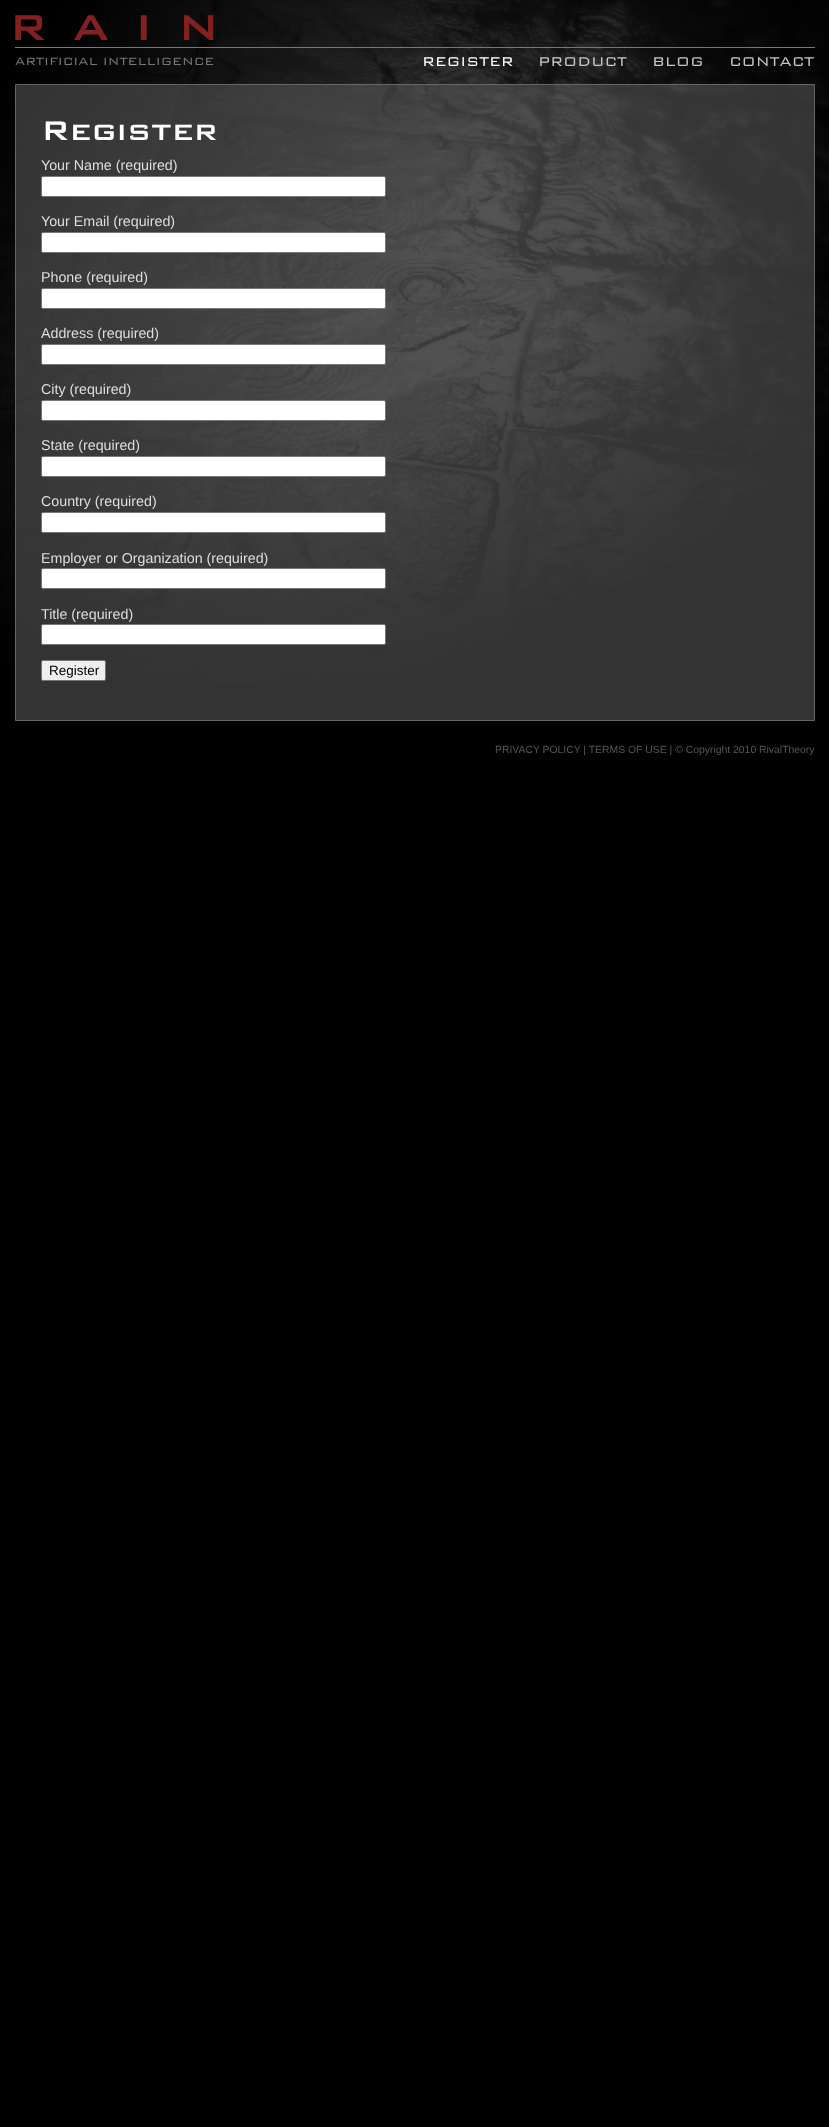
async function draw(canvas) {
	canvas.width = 829;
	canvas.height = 2127;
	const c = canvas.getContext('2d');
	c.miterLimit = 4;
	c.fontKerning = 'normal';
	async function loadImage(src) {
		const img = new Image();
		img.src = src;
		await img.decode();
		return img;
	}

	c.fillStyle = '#000';
	c.fillRect(0, 0, 829, 2127);
	c.drawImage(await loadImage('img1.png'), 0, 0, 829, 685);
	c.letterSpacing = '25px';
	c.font = '500 48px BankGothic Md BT';
	c.fillStyle = '#852020';
	c.fillText('RAIN', 9, 40);
	c.fillStyle = '#777';
	c.fillRect(15, 47, 800, 1);
	c.letterSpacing = '0px';
	c.font = '300 14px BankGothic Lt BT';
	c.fillText('ARTIFICIAL INTELLIGENCE', 15, 65);
	c.font = '300 16.75px BankGothic Lt BT';
	c.fillStyle = '#fff';
	c.fillText('REGISTER', 422, 66);
	c.fillStyle = '#c6c6c6';
	for (const [text, x, y] of [
		['PRODUCT', 538, 66],
		['BLOG', 652, 66],
		['CONTACT', 729, 66],
	]) {
		c.fillText(text, x, y);
	}
	c.fillStyle = '#55555599';
	c.beginPath();
	c.rect(15.5, 84.5, 799, 636);
	c.fill();
	c.strokeStyle = '#666';
	c.stroke();
	c.font = '500 36px BankGothic Md BT';
	c.fillStyle = '#fff';
	c.fillText('Register', 41, 140);
	c.font = '14.25px Liberation Sans';
	c.fillStyle = '#ddd';
	c.fillText('Your Name (required)', 41, 170);
	c.fillStyle = '#fff';
	c.beginPath();
	c.roundRect(41.5, 176.5, 344, 20, 1.5);
	c.fill();
	c.strokeStyle = '#767676';
	c.stroke();
	c.fillStyle = '#ddd';
	c.fillText('Your Email (required)', 41, 226);
	c.fillStyle = '#fff';
	c.beginPath();
	c.roundRect(41.5, 232.5, 344, 20, 1.5);
	c.fill();
	c.stroke();
	c.fillStyle = '#ddd';
	c.fillText('Phone (required)', 41, 282);
	c.fillStyle = '#fff';
	c.beginPath();
	c.roundRect(41.5, 288.5, 344, 20, 1.5);
	c.fill();
	c.stroke();
	c.fillStyle = '#ddd';
	c.fillText('Address (required)', 41, 338);
	c.fillStyle = '#fff';
	c.beginPath();
	c.roundRect(41.5, 344.5, 344, 20, 1.5);
	c.fill();
	c.stroke();
	c.fillStyle = '#ddd';
	c.fillText('City (required)', 41, 394);
	c.fillStyle = '#fff';
	c.beginPath();
	c.roundRect(41.5, 400.5, 344, 20, 1.5);
	c.fill();
	c.stroke();
	c.fillStyle = '#ddd';
	c.fillText('State (required)', 41, 450);
	c.fillStyle = '#fff';
	c.beginPath();
	c.roundRect(41.5, 456.5, 344, 20, 1.5);
	c.fill();
	c.stroke();
	c.fillStyle = '#ddd';
	c.fillText('Country (required)', 41, 506);
	c.fillStyle = '#fff';
	c.beginPath();
	c.roundRect(41.5, 512.5, 344, 20, 1.5);
	c.fill();
	c.stroke();
	c.fillStyle = '#ddd';
	c.fillText('Employer or Organization (required)', 41, 563);
	c.fillStyle = '#fff';
	c.beginPath();
	c.roundRect(41.5, 568.5, 344, 20, 1.5);
	c.fill();
	c.stroke();
	c.fillStyle = '#ddd';
	c.fillText('Title (required)', 41, 619);
	c.fillStyle = '#fff';
	c.beginPath();
	c.roundRect(41.5, 624.5, 344, 20, 1.5);
	c.fill();
	c.stroke();
	c.fillStyle = '#efefef';
	c.beginPath();
	c.roundRect(41.5, 660.5, 64, 20, 1.5);
	c.fill();
	c.stroke();
	c.font = '13.5px Liberation Sans';
	c.fillStyle = '#000';
	c.fillText('Register', 49, 675);
	c.font = '10.4px Liberation Sans';
	c.fillStyle = '#555';
	c.fillText('PRIVACY POLICY | TERMS OF USE | © Copyright 2010 RivalTheory', 495, 753);
}

draw(document.querySelector('canvas'));
